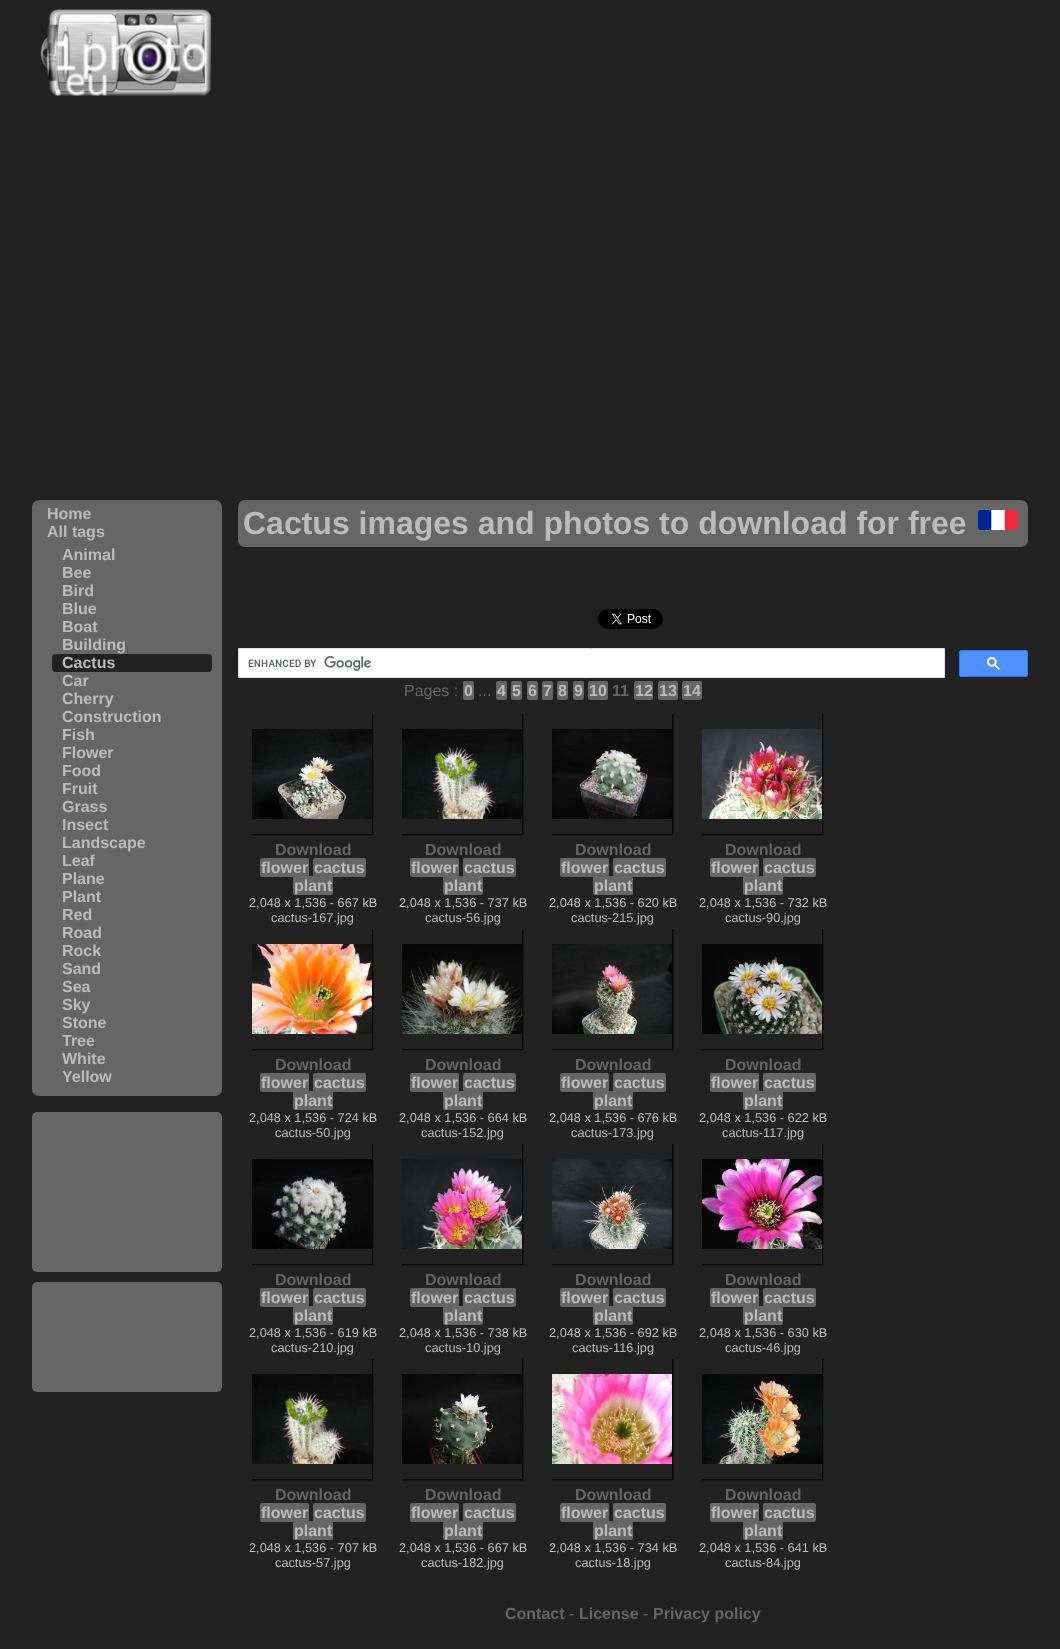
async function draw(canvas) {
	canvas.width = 1060;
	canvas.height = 1649;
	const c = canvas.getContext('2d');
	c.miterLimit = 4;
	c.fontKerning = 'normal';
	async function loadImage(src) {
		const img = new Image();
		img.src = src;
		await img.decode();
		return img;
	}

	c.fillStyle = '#222';
	c.fillRect(0, 0, 1060, 1649);
	c.drawImage(await loadImage('img1.png'), 40, 9, 172, 87);
	c.fillStyle = '#666';
	c.beginPath();
	c.roundRect(32, 500, 190, 596, 7);
	c.fill();
	c.font = 'bold 16px Liberation Sans';
	c.fillStyle = '#bbb';
	for (const [text, x, y] of [
		['Home', 47, 519],
		['All tags', 47, 537],
		['Animal', 62, 560],
		['Bee', 62, 578],
		['Bird', 62, 596],
		['Blue', 62, 614],
		['Boat', 62, 632],
		['Building', 62, 650],
	]) {
		c.fillText(text, x, y);
	}
	c.fillStyle = '#222';
	c.beginPath();
	c.roundRect(52, 654, 160, 18, 4);
	c.fill();
	c.fillStyle = '#bbb';
	for (const [text, x, y] of [
		['Cactus', 62, 668],
		['Car', 62, 686],
		['Cherry', 62, 704],
		['Construction', 62, 722],
		['Fish', 62, 740],
		['Flower', 62, 758],
		['Food', 62, 776],
		['Fruit', 62, 794],
		['Grass', 62, 812],
		['Insect', 62, 830],
		['Landscape', 62, 848],
		['Leaf', 62, 866],
		['Plane', 62, 884],
		['Plant', 62, 902],
		['Red', 62, 920],
		['Road', 62, 938],
		['Rock', 62, 956],
		['Sand', 62, 974],
		['Sea', 62, 992],
		['Sky', 62, 1010],
		['Stone', 62, 1028],
		['Tree', 62, 1046],
		['White', 62, 1064],
		['Yellow', 62, 1082],
	]) {
		c.fillText(text, x, y);
	}
	c.fillStyle = '#666';
	c.beginPath();
	c.roundRect(238, 500, 790, 47, 7);
	c.fill();
	c.font = 'bold 32px Liberation Sans';
	c.fillStyle = '#bbb';
	c.fillText('Cactus images and photos to download for free', 243, 534);
	c.drawImage(await loadImage('img2.png'), 978, 510, 40, 20);
	c.fillStyle = '#666';
	c.beginPath();
	c.roundRect(32, 1112, 190, 160, 5);
	c.fill();
	c.beginPath();
	c.roundRect(32, 1282, 190, 110, 5);
	c.fill();
	c.drawImage(await loadImage('img3.png'), 598, 609, 65, 20);
	c.fillStyle = '#fff';
	c.beginPath();
	c.rect(238.5, 648.5, 706, 29);
	c.fill();
	c.strokeStyle = '#dfe1e5';
	c.stroke();
	c.drawImage(await loadImage('img4.png'), 248, 656, 123, 15);
	c.fillStyle = '#4d90fe';
	c.beginPath();
	c.roundRect(959.5, 650.5, 68, 26, 1.5);
	c.fill();
	c.strokeStyle = '#3079ed';
	c.stroke();
	c.drawImage(await loadImage('img5.png'), 987, 657, 13, 13);
	c.font = '16px Liberation Sans';
	c.fillStyle = '#666';
	c.fillText('Pages :', 404, 696);
	c.beginPath();
	c.roundRect(463, 681, 11, 19, 2);
	c.fill();
	c.font = 'bold 16px Liberation Sans';
	c.fillStyle = '#bbb';
	c.fillText('0', 464, 696);
	c.font = '16px Liberation Sans';
	c.fillStyle = '#666';
	c.fillText('...', 478, 696);
	c.beginPath();
	c.roundRect(496, 681, 11, 19, 2);
	c.fill();
	c.font = 'bold 16px Liberation Sans';
	c.fillStyle = '#bbb';
	c.fillText('4', 497, 696);
	c.fillStyle = '#666';
	c.beginPath();
	c.roundRect(511, 681, 11, 19, 2);
	c.fill();
	c.fillStyle = '#bbb';
	c.fillText('5', 512, 696);
	c.fillStyle = '#666';
	c.beginPath();
	c.roundRect(527, 681, 11, 19, 2);
	c.fill();
	c.fillStyle = '#bbb';
	c.fillText('6', 528, 696);
	c.fillStyle = '#666';
	c.beginPath();
	c.roundRect(542, 681, 11, 19, 2);
	c.fill();
	c.fillStyle = '#bbb';
	c.fillText('7', 543, 696);
	c.fillStyle = '#666';
	c.beginPath();
	c.roundRect(557, 681, 11, 19, 2);
	c.fill();
	c.fillStyle = '#bbb';
	c.fillText('8', 558, 696);
	c.fillStyle = '#666';
	c.beginPath();
	c.roundRect(573, 681, 11, 19, 2);
	c.fill();
	c.fillStyle = '#bbb';
	c.fillText('9', 574, 696);
	c.fillStyle = '#666';
	c.beginPath();
	c.roundRect(588, 681, 20, 19, 2);
	c.fill();
	c.fillStyle = '#bbb';
	c.fillText('10', 589, 696);
	c.fillStyle = '#666';
	c.fillText('11', 612, 696);
	c.beginPath();
	c.roundRect(634, 681, 19, 19, 2);
	c.fill();
	c.fillStyle = '#bbb';
	c.fillText('12', 635, 696);
	c.fillStyle = '#666';
	c.beginPath();
	c.roundRect(658, 681, 20, 19, 2);
	c.fill();
	c.fillStyle = '#bbb';
	c.fillText('13', 659, 696);
	c.fillStyle = '#666';
	c.beginPath();
	c.roundRect(682, 681, 20, 19, 2);
	c.fill();
	c.fillStyle = '#bbb';
	c.fillText('14', 683, 696);
	c.drawImage(await loadImage('img6.png'), 252, 714, 122, 122);
	c.fillStyle = '#666';
	c.fillText('Download', 275, 855);
	c.beginPath();
	c.roundRect(260, 858, 49, 19, 2);
	c.fill();
	c.fillStyle = '#bbb';
	c.fillText('flower', 261, 873);
	c.fillStyle = '#666';
	c.beginPath();
	c.roundRect(313, 858, 53, 19, 2);
	c.fill();
	c.fillStyle = '#bbb';
	c.fillText('cactus', 314, 873);
	c.fillStyle = '#666';
	c.beginPath();
	c.roundRect(293, 876, 40, 19, 2);
	c.fill();
	c.fillStyle = '#bbb';
	c.fillText('plant', 294, 891);
	c.font = '12.75px Liberation Sans';
	c.fillText('2,048 x 1,536 - 667 kB', 249, 907);
	c.fillText('cactus-167.jpg', 271, 922);
	c.drawImage(await loadImage('img7.png'), 402, 714, 122, 122);
	c.font = 'bold 16px Liberation Sans';
	c.fillStyle = '#666';
	c.fillText('Download', 425, 855);
	c.beginPath();
	c.roundRect(410, 858, 49, 19, 2);
	c.fill();
	c.fillStyle = '#bbb';
	c.fillText('flower', 411, 873);
	c.fillStyle = '#666';
	c.beginPath();
	c.roundRect(463, 858, 53, 19, 2);
	c.fill();
	c.fillStyle = '#bbb';
	c.fillText('cactus', 464, 873);
	c.fillStyle = '#666';
	c.beginPath();
	c.roundRect(443, 876, 40, 19, 2);
	c.fill();
	c.fillStyle = '#bbb';
	c.fillText('plant', 444, 891);
	c.font = '12.75px Liberation Sans';
	c.fillText('2,048 x 1,536 - 737 kB', 399, 907);
	c.fillText('cactus-56.jpg', 425, 922);
	c.drawImage(await loadImage('img8.png'), 552, 714, 122, 122);
	c.font = 'bold 16px Liberation Sans';
	c.fillStyle = '#666';
	c.fillText('Download', 575, 855);
	c.beginPath();
	c.roundRect(560, 858, 49, 19, 2);
	c.fill();
	c.fillStyle = '#bbb';
	c.fillText('flower', 561, 873);
	c.fillStyle = '#666';
	c.beginPath();
	c.roundRect(613, 858, 53, 19, 2);
	c.fill();
	c.fillStyle = '#bbb';
	c.fillText('cactus', 614, 873);
	c.fillStyle = '#666';
	c.beginPath();
	c.roundRect(593, 876, 40, 19, 2);
	c.fill();
	c.fillStyle = '#bbb';
	c.fillText('plant', 594, 891);
	c.font = '12.75px Liberation Sans';
	c.fillText('2,048 x 1,536 - 620 kB', 549, 907);
	c.fillText('cactus-215.jpg', 571, 922);
	c.drawImage(await loadImage('img9.png'), 702, 714, 122, 122);
	c.font = 'bold 16px Liberation Sans';
	c.fillStyle = '#666';
	c.fillText('Download', 725, 855);
	c.beginPath();
	c.roundRect(710, 858, 49, 19, 2);
	c.fill();
	c.fillStyle = '#bbb';
	c.fillText('flower', 711, 873);
	c.fillStyle = '#666';
	c.beginPath();
	c.roundRect(763, 858, 53, 19, 2);
	c.fill();
	c.fillStyle = '#bbb';
	c.fillText('cactus', 764, 873);
	c.fillStyle = '#666';
	c.beginPath();
	c.roundRect(743, 876, 40, 19, 2);
	c.fill();
	c.fillStyle = '#bbb';
	c.fillText('plant', 744, 891);
	c.font = '12.75px Liberation Sans';
	c.fillText('2,048 x 1,536 - 732 kB', 699, 907);
	c.fillText('cactus-90.jpg', 725, 922);
	c.drawImage(await loadImage('img10.png'), 252, 929, 122, 122);
	c.font = 'bold 16px Liberation Sans';
	c.fillStyle = '#666';
	c.fillText('Download', 275, 1070);
	c.beginPath();
	c.roundRect(260, 1073, 49, 19, 2);
	c.fill();
	c.fillStyle = '#bbb';
	c.fillText('flower', 261, 1088);
	c.fillStyle = '#666';
	c.beginPath();
	c.roundRect(313, 1073, 53, 19, 2);
	c.fill();
	c.fillStyle = '#bbb';
	c.fillText('cactus', 314, 1088);
	c.fillStyle = '#666';
	c.beginPath();
	c.roundRect(293, 1091, 40, 19, 2);
	c.fill();
	c.fillStyle = '#bbb';
	c.fillText('plant', 294, 1106);
	c.font = '12.75px Liberation Sans';
	c.fillText('2,048 x 1,536 - 724 kB', 249, 1122);
	c.fillText('cactus-50.jpg', 275, 1137);
	c.drawImage(await loadImage('img11.png'), 402, 929, 122, 122);
	c.font = 'bold 16px Liberation Sans';
	c.fillStyle = '#666';
	c.fillText('Download', 425, 1070);
	c.beginPath();
	c.roundRect(410, 1073, 49, 19, 2);
	c.fill();
	c.fillStyle = '#bbb';
	c.fillText('flower', 411, 1088);
	c.fillStyle = '#666';
	c.beginPath();
	c.roundRect(463, 1073, 53, 19, 2);
	c.fill();
	c.fillStyle = '#bbb';
	c.fillText('cactus', 464, 1088);
	c.fillStyle = '#666';
	c.beginPath();
	c.roundRect(443, 1091, 40, 19, 2);
	c.fill();
	c.fillStyle = '#bbb';
	c.fillText('plant', 444, 1106);
	c.font = '12.75px Liberation Sans';
	c.fillText('2,048 x 1,536 - 664 kB', 399, 1122);
	c.fillText('cactus-152.jpg', 421, 1137);
	c.drawImage(await loadImage('img12.png'), 552, 929, 122, 122);
	c.font = 'bold 16px Liberation Sans';
	c.fillStyle = '#666';
	c.fillText('Download', 575, 1070);
	c.beginPath();
	c.roundRect(560, 1073, 49, 19, 2);
	c.fill();
	c.fillStyle = '#bbb';
	c.fillText('flower', 561, 1088);
	c.fillStyle = '#666';
	c.beginPath();
	c.roundRect(613, 1073, 53, 19, 2);
	c.fill();
	c.fillStyle = '#bbb';
	c.fillText('cactus', 614, 1088);
	c.fillStyle = '#666';
	c.beginPath();
	c.roundRect(593, 1091, 40, 19, 2);
	c.fill();
	c.fillStyle = '#bbb';
	c.fillText('plant', 594, 1106);
	c.font = '12.75px Liberation Sans';
	c.fillText('2,048 x 1,536 - 676 kB', 549, 1122);
	c.fillText('cactus-173.jpg', 571, 1137);
	c.drawImage(await loadImage('img13.png'), 702, 929, 122, 122);
	c.font = 'bold 16px Liberation Sans';
	c.fillStyle = '#666';
	c.fillText('Download', 725, 1070);
	c.beginPath();
	c.roundRect(710, 1073, 49, 19, 2);
	c.fill();
	c.fillStyle = '#bbb';
	c.fillText('flower', 711, 1088);
	c.fillStyle = '#666';
	c.beginPath();
	c.roundRect(763, 1073, 53, 19, 2);
	c.fill();
	c.fillStyle = '#bbb';
	c.fillText('cactus', 764, 1088);
	c.fillStyle = '#666';
	c.beginPath();
	c.roundRect(743, 1091, 40, 19, 2);
	c.fill();
	c.fillStyle = '#bbb';
	c.fillText('plant', 744, 1106);
	c.font = '12.75px Liberation Sans';
	c.fillText('2,048 x 1,536 - 622 kB', 699, 1122);
	c.fillText('cactus-117.jpg', 722, 1137);
	c.drawImage(await loadImage('img14.png'), 252, 1144, 122, 122);
	c.font = 'bold 16px Liberation Sans';
	c.fillStyle = '#666';
	c.fillText('Download', 275, 1285);
	c.beginPath();
	c.roundRect(260, 1288, 49, 19, 2);
	c.fill();
	c.fillStyle = '#bbb';
	c.fillText('flower', 261, 1303);
	c.fillStyle = '#666';
	c.beginPath();
	c.roundRect(313, 1288, 53, 19, 2);
	c.fill();
	c.fillStyle = '#bbb';
	c.fillText('cactus', 314, 1303);
	c.fillStyle = '#666';
	c.beginPath();
	c.roundRect(293, 1306, 40, 19, 2);
	c.fill();
	c.fillStyle = '#bbb';
	c.fillText('plant', 294, 1321);
	c.font = '12.75px Liberation Sans';
	c.fillText('2,048 x 1,536 - 619 kB', 249, 1337);
	c.fillText('cactus-210.jpg', 271, 1352);
	c.drawImage(await loadImage('img15.png'), 402, 1144, 122, 122);
	c.font = 'bold 16px Liberation Sans';
	c.fillStyle = '#666';
	c.fillText('Download', 425, 1285);
	c.beginPath();
	c.roundRect(410, 1288, 49, 19, 2);
	c.fill();
	c.fillStyle = '#bbb';
	c.fillText('flower', 411, 1303);
	c.fillStyle = '#666';
	c.beginPath();
	c.roundRect(463, 1288, 53, 19, 2);
	c.fill();
	c.fillStyle = '#bbb';
	c.fillText('cactus', 464, 1303);
	c.fillStyle = '#666';
	c.beginPath();
	c.roundRect(443, 1306, 40, 19, 2);
	c.fill();
	c.fillStyle = '#bbb';
	c.fillText('plant', 444, 1321);
	c.font = '12.75px Liberation Sans';
	c.fillText('2,048 x 1,536 - 738 kB', 399, 1337);
	c.fillText('cactus-10.jpg', 425, 1352);
	c.drawImage(await loadImage('img16.png'), 552, 1144, 122, 122);
	c.font = 'bold 16px Liberation Sans';
	c.fillStyle = '#666';
	c.fillText('Download', 575, 1285);
	c.beginPath();
	c.roundRect(560, 1288, 49, 19, 2);
	c.fill();
	c.fillStyle = '#bbb';
	c.fillText('flower', 561, 1303);
	c.fillStyle = '#666';
	c.beginPath();
	c.roundRect(613, 1288, 53, 19, 2);
	c.fill();
	c.fillStyle = '#bbb';
	c.fillText('cactus', 614, 1303);
	c.fillStyle = '#666';
	c.beginPath();
	c.roundRect(593, 1306, 40, 19, 2);
	c.fill();
	c.fillStyle = '#bbb';
	c.fillText('plant', 594, 1321);
	c.font = '12.75px Liberation Sans';
	c.fillText('2,048 x 1,536 - 692 kB', 549, 1337);
	c.fillText('cactus-116.jpg', 572, 1352);
	c.drawImage(await loadImage('img17.png'), 702, 1144, 122, 122);
	c.font = 'bold 16px Liberation Sans';
	c.fillStyle = '#666';
	c.fillText('Download', 725, 1285);
	c.beginPath();
	c.roundRect(710, 1288, 49, 19, 2);
	c.fill();
	c.fillStyle = '#bbb';
	c.fillText('flower', 711, 1303);
	c.fillStyle = '#666';
	c.beginPath();
	c.roundRect(763, 1288, 53, 19, 2);
	c.fill();
	c.fillStyle = '#bbb';
	c.fillText('cactus', 764, 1303);
	c.fillStyle = '#666';
	c.beginPath();
	c.roundRect(743, 1306, 40, 19, 2);
	c.fill();
	c.fillStyle = '#bbb';
	c.fillText('plant', 744, 1321);
	c.font = '12.75px Liberation Sans';
	c.fillText('2,048 x 1,536 - 630 kB', 699, 1337);
	c.fillText('cactus-46.jpg', 725, 1352);
	c.drawImage(await loadImage('img18.png'), 252, 1359, 122, 122);
	c.font = 'bold 16px Liberation Sans';
	c.fillStyle = '#666';
	c.fillText('Download', 275, 1500);
	c.beginPath();
	c.roundRect(260, 1503, 49, 19, 2);
	c.fill();
	c.fillStyle = '#bbb';
	c.fillText('flower', 261, 1518);
	c.fillStyle = '#666';
	c.beginPath();
	c.roundRect(313, 1503, 53, 19, 2);
	c.fill();
	c.fillStyle = '#bbb';
	c.fillText('cactus', 314, 1518);
	c.fillStyle = '#666';
	c.beginPath();
	c.roundRect(293, 1521, 40, 19, 2);
	c.fill();
	c.fillStyle = '#bbb';
	c.fillText('plant', 294, 1536);
	c.font = '12.75px Liberation Sans';
	c.fillText('2,048 x 1,536 - 707 kB', 249, 1552);
	c.fillText('cactus-57.jpg', 275, 1567);
	c.drawImage(await loadImage('img19.png'), 402, 1359, 122, 122);
	c.font = 'bold 16px Liberation Sans';
	c.fillStyle = '#666';
	c.fillText('Download', 425, 1500);
	c.beginPath();
	c.roundRect(410, 1503, 49, 19, 2);
	c.fill();
	c.fillStyle = '#bbb';
	c.fillText('flower', 411, 1518);
	c.fillStyle = '#666';
	c.beginPath();
	c.roundRect(463, 1503, 53, 19, 2);
	c.fill();
	c.fillStyle = '#bbb';
	c.fillText('cactus', 464, 1518);
	c.fillStyle = '#666';
	c.beginPath();
	c.roundRect(443, 1521, 40, 19, 2);
	c.fill();
	c.fillStyle = '#bbb';
	c.fillText('plant', 444, 1536);
	c.font = '12.75px Liberation Sans';
	c.fillText('2,048 x 1,536 - 667 kB', 399, 1552);
	c.fillText('cactus-182.jpg', 421, 1567);
	c.drawImage(await loadImage('img20.png'), 552, 1359, 122, 122);
	c.font = 'bold 16px Liberation Sans';
	c.fillStyle = '#666';
	c.fillText('Download', 575, 1500);
	c.beginPath();
	c.roundRect(560, 1503, 49, 19, 2);
	c.fill();
	c.fillStyle = '#bbb';
	c.fillText('flower', 561, 1518);
	c.fillStyle = '#666';
	c.beginPath();
	c.roundRect(613, 1503, 53, 19, 2);
	c.fill();
	c.fillStyle = '#bbb';
	c.fillText('cactus', 614, 1518);
	c.fillStyle = '#666';
	c.beginPath();
	c.roundRect(593, 1521, 40, 19, 2);
	c.fill();
	c.fillStyle = '#bbb';
	c.fillText('plant', 594, 1536);
	c.font = '12.75px Liberation Sans';
	c.fillText('2,048 x 1,536 - 734 kB', 549, 1552);
	c.fillText('cactus-18.jpg', 575, 1567);
	c.drawImage(await loadImage('img21.png'), 702, 1359, 122, 122);
	c.font = 'bold 16px Liberation Sans';
	c.fillStyle = '#666';
	c.fillText('Download', 725, 1500);
	c.beginPath();
	c.roundRect(710, 1503, 49, 19, 2);
	c.fill();
	c.fillStyle = '#bbb';
	c.fillText('flower', 711, 1518);
	c.fillStyle = '#666';
	c.beginPath();
	c.roundRect(763, 1503, 53, 19, 2);
	c.fill();
	c.fillStyle = '#bbb';
	c.fillText('cactus', 764, 1518);
	c.fillStyle = '#666';
	c.beginPath();
	c.roundRect(743, 1521, 40, 19, 2);
	c.fill();
	c.fillStyle = '#bbb';
	c.fillText('plant', 744, 1536);
	c.font = '12.75px Liberation Sans';
	c.fillText('2,048 x 1,536 - 641 kB', 699, 1552);
	c.fillText('cactus-84.jpg', 725, 1567);
	c.font = 'bold 16px Liberation Sans';
	c.fillStyle = '#666';
	c.fillText('Contact', 505, 1619);
	c.font = '16px Liberation Sans';
	c.fillText('-', 569, 1619);
	c.font = 'bold 16px Liberation Sans';
	c.fillText('License', 579, 1619);
	c.font = '16px Liberation Sans';
	c.fillText('-', 643, 1619);
	c.font = 'bold 16px Liberation Sans';
	c.fillText('Privacy policy', 653, 1619);
}

draw(document.querySelector('canvas'));
